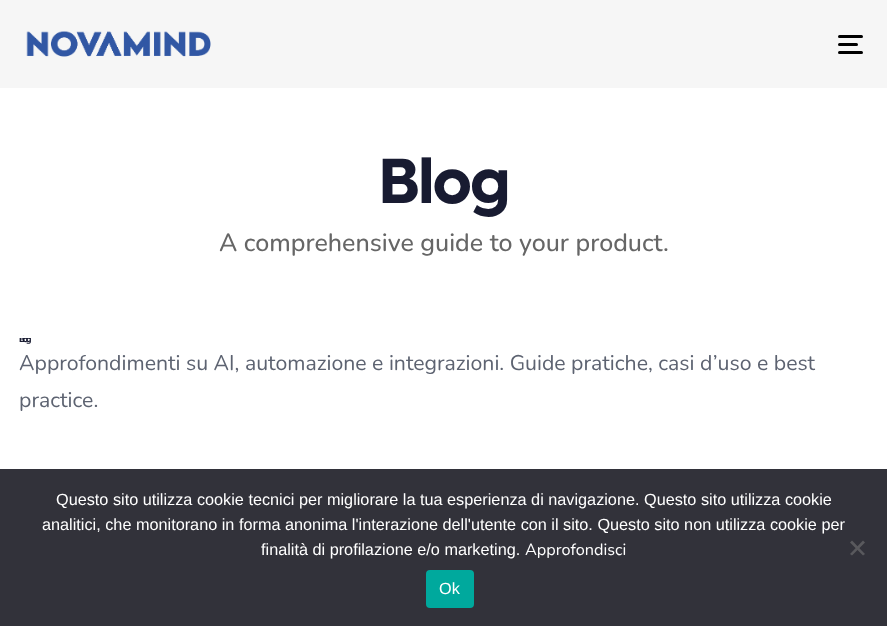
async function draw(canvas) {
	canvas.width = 887;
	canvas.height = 626;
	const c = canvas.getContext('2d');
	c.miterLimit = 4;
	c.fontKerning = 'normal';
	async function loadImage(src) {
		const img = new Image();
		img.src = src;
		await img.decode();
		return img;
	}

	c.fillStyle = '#fff';
	c.fillRect(0, 0, 887, 626);
	c.letterSpacing = '-2px';
	c.font = '800 8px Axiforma';
	c.fillStyle = '#181b31';
	c.fillText('Blog', 19, 342);
	c.fillStyle = '#fff';
	c.fillRect(19, 336, 12, 2);
	c.fillStyle = '#f6f6f6';
	c.fillRect(0, 0, 887, 88);
	c.drawImage(await loadImage('img1.png'), 26, 31, 185, 26);
	c.fillStyle = '#000';
	c.beginPath();
	c.roundRect(838, 35, 25, 3, 1.5);
	c.fill();
	c.beginPath();
	c.roundRect(838, 43, 20, 3, 1.5);
	c.fill();
	c.beginPath();
	c.roundRect(838, 51, 25, 3, 1.5);
	c.fill();
	c.font = '800 60px Axiforma';
	c.fillStyle = '#181b31';
	c.fillText('Blog', 378, 203);
	c.letterSpacing = '0px';
	c.font = '500 25px Nunito';
	c.fillStyle = '#666';
	c.fillText('A comprehensive guide to your product.', 219, 251);
	c.font = '21.25px Nunito';
	c.fillStyle = '#5d6371';
	c.fillText('Approfondimenti su AI, automazione e integrazioni. Guide pratiche, casi d’uso e best', 19, 370);
	c.fillText('practice.', 19, 407);
	c.fillStyle = '#32323a';
	c.fillRect(0, 469, 887, 157);
	c.font = '16.25px Liberation Sans';
	c.fillStyle = '#fff';
	for (const [text, x, y] of [
		['Questo sito utilizza cookie tecnici per migliorare la tua esperienza di navigazione. Questo sito utilizza cookie', 56, 505],
		['analitici, che monitorano in forma anonima l\'interazione dell\'utente con il sito. Questo sito non utilizza cookie per', 42, 530],
		['finalità di profilazione e/o marketing.', 261, 555],
	]) {
		c.fillText(text, x, y);
	}
	c.font = '16.25px Nunito';
	c.fillText('Approfondisci', 525, 555);
	c.fillStyle = '#59595d';
	c.beginPath();
	c.moveTo(863, 540.5);
	c.lineTo(865, 542.5);
	c.lineTo(852, 555.5);
	c.lineTo(850, 554);
	c.closePath();
	c.fill();
	c.beginPath();
	c.moveTo(850, 542.5);
	c.lineTo(852, 540.5);
	c.lineTo(865, 554);
	c.lineTo(863, 555.5);
	c.closePath();
	c.fill();
	c.fillStyle = '#00a99d';
	c.beginPath();
	c.roundRect(426, 570, 48, 38, 4);
	c.fill();
	c.font = '16.25px Liberation Sans';
	c.fillStyle = '#fff';
	c.fillText('Ok', 439, 594);
}

draw(document.querySelector('canvas'));
